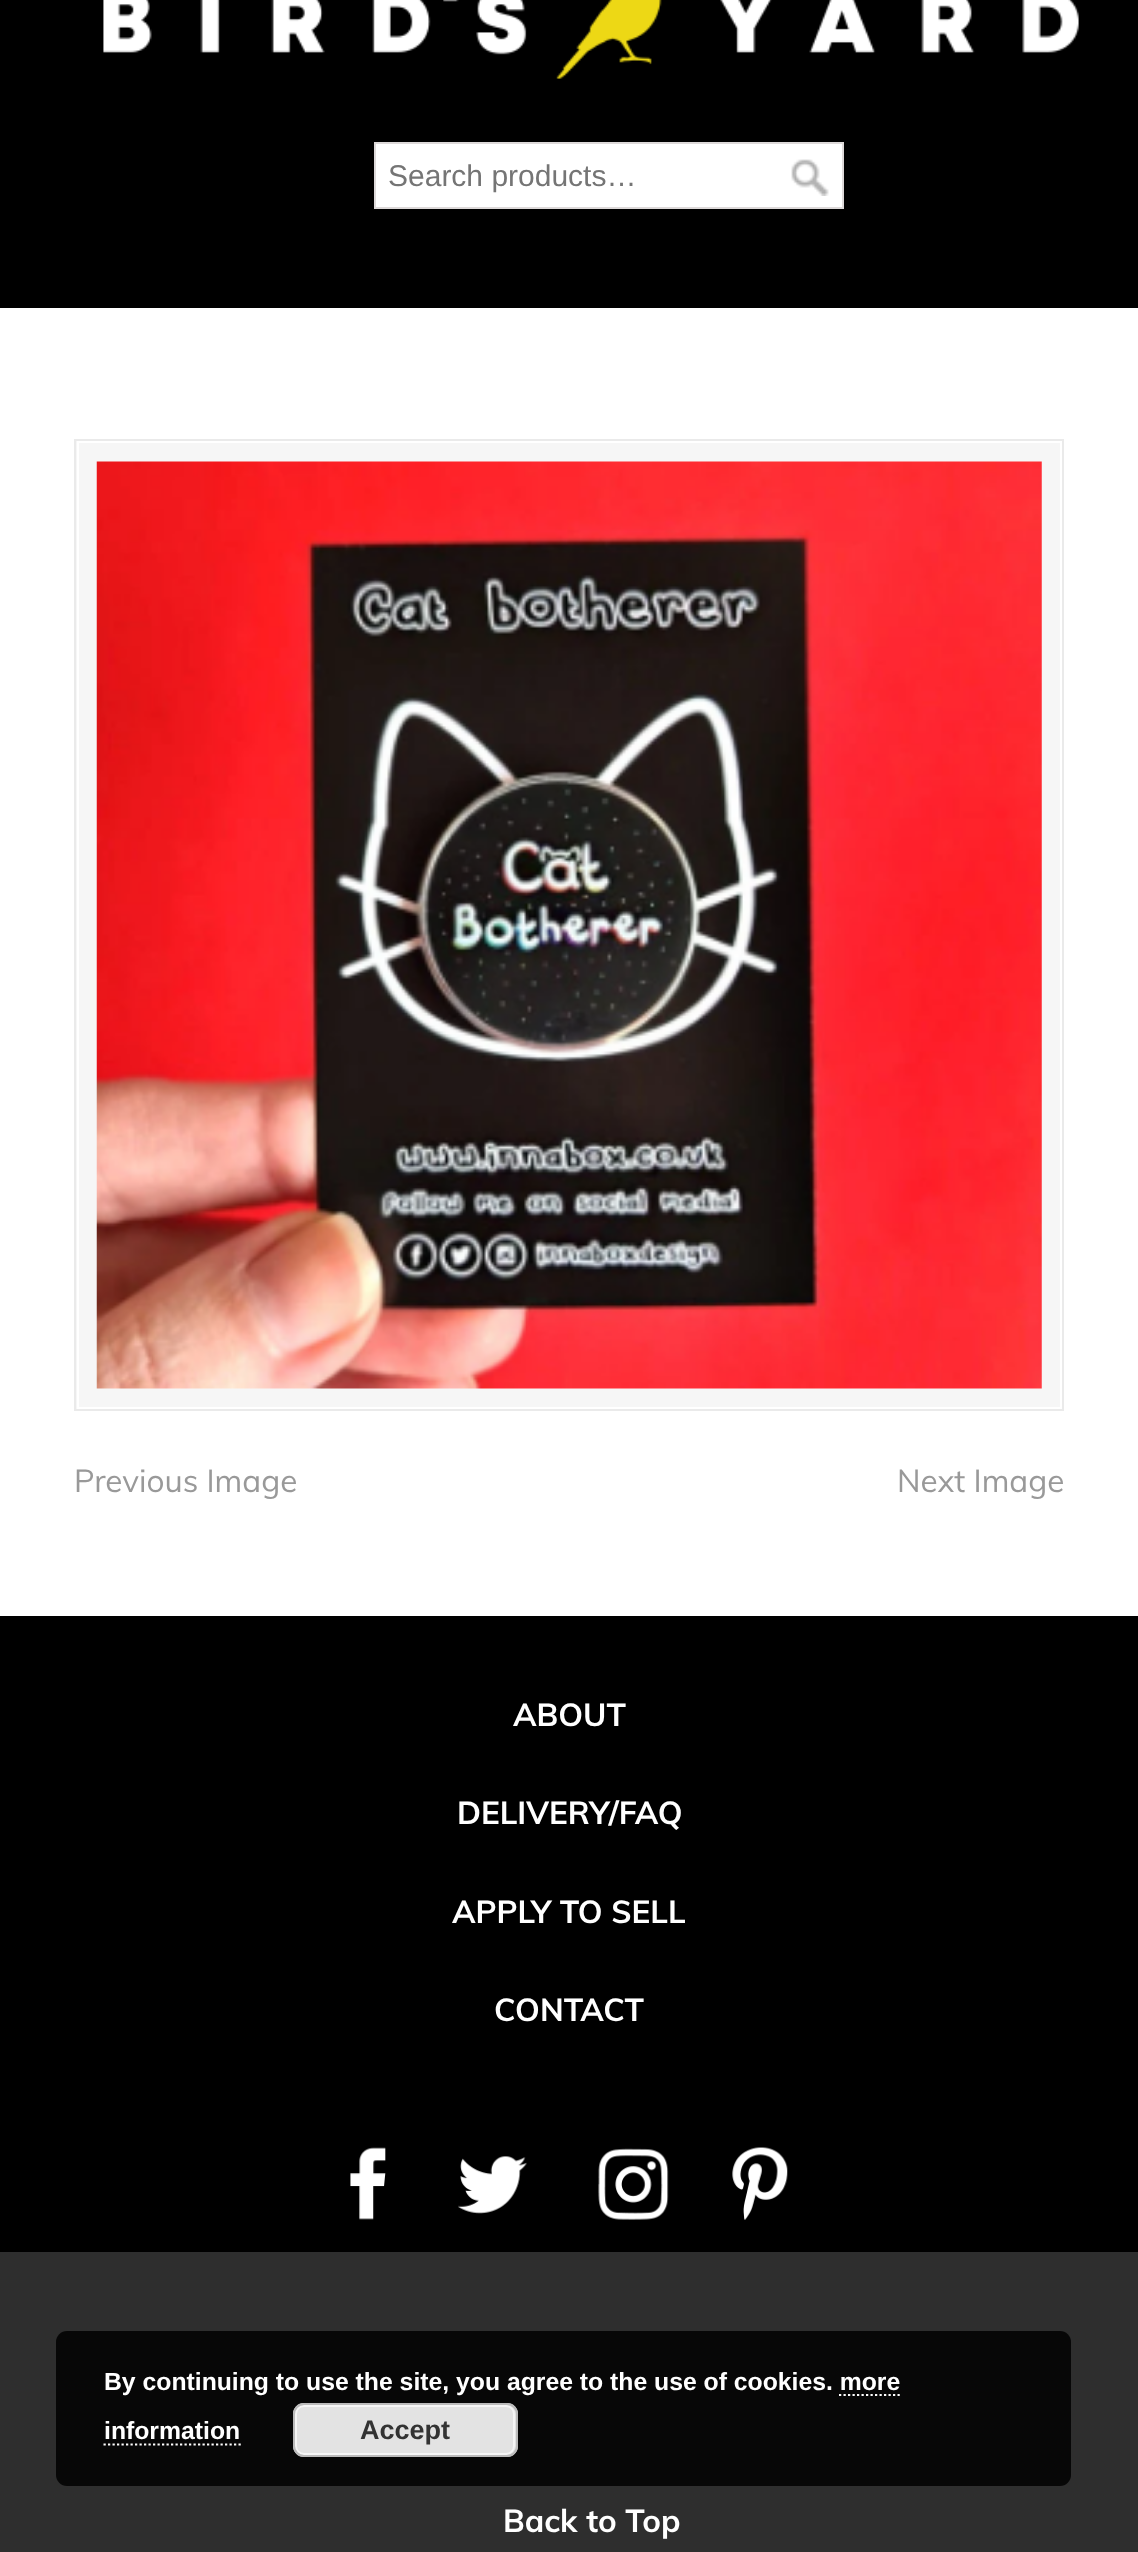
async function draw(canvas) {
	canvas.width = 1138;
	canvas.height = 2552;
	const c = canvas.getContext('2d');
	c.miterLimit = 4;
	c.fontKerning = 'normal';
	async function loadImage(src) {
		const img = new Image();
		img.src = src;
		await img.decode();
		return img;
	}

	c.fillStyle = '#fff';
	c.fillRect(0, 0, 1138, 2552);
	c.fillStyle = '#000';
	c.fillRect(0, 0, 1138, 308);
	c.drawImage(await loadImage('img1.png'), 103, 0, 976, 79);
	c.fillStyle = '#fff';
	c.beginPath();
	c.rect(375, 143, 468, 65);
	c.fill();
	c.strokeStyle = '#ddd9d9';
	c.lineWidth = 2;
	c.stroke();
	c.font = '30px Liberation Sans';
	c.fillStyle = '#757575';
	c.fillText('Search products…', 388, 186);
	c.drawImage(await loadImage('img2.png'), 791, 159, 38, 37);
	c.fillStyle = '#f6f6f6';
	c.fillRect(76, 441, 984, 968);
	c.strokeStyle = '#eaeaea';
	c.strokeRect(75, 440, 988, 970);
	c.strokeStyle = '#fff';
	c.strokeRect(78, 442, 983, 966);
	c.drawImage(await loadImage('img3.png'), 96, 461, 946, 928);
	c.font = '31.5px Muli';
	c.fillStyle = '#999';
	c.fillText('Previous Image', 74, 1492);
	c.fillText('Next Image', 897, 1492);
	c.fillStyle = '#000';
	c.fillRect(0, 1616, 1138, 636);
	c.font = 'bold 31.5px Muli';
	c.fillStyle = '#fff';
	for (const [text, x, y] of [
		['ABOUT', 513, 1726],
		['DELIVERY/FAQ', 457, 1824],
		['APPLY TO SELL', 452, 1923],
		['CONTACT', 494, 2021],
	]) {
		c.fillText(text, x, y);
	}
	c.drawImage(await loadImage('img4.png'), 350, 2147, 36, 73);
	c.drawImage(await loadImage('img5.png'), 458, 2156, 69, 58);
	c.drawImage(await loadImage('img6.png'), 598, 2148, 71, 72);
	c.drawImage(await loadImage('img7.png'), 732, 2147, 56, 73);
	c.fillStyle = '#2e2e2e';
	c.fillRect(0, 2252, 1138, 300);
	c.fillStyle = '#fff';
	c.fillText('Back to Top', 503, 2532);
	c.fillStyle = '#000000d9';
	c.beginPath();
	c.roundRect(56, 2331, 1015, 155, 11);
	c.fill();
	c.font = 'bold 24.75px Liberation Sans';
	c.fillStyle = '#fff';
	c.fillText('By continuing to use the site, you agree to the use of cookies. more', 104, 2390);
	c.fillText('information', 104, 2439);
	c.beginPath();
	c.moveTo(839, 2395);
	c.lineTo(900, 2395);
	c.lineWidth = 2.2;
	c.setLineDash([2.25, 2.25]);
	c.stroke();
	c.beginPath();
	c.moveTo(103.5, 2444.5);
	c.lineTo(241, 2444.5);
	c.stroke();
	c.fillStyle = '#e3e3e3';
	c.beginPath();
	c.roundRect(293, 2403, 225, 54, 11);
	c.fill();
	c.beginPath();
	c.roundRect(296, 2406, 218, 48, 8);
	c.strokeStyle = '#f6f6f6';
	c.lineWidth = 2;
	c.setLineDash([]);
	c.stroke();
	c.beginPath();
	c.roundRect(294, 2404, 223, 52, 10);
	c.strokeStyle = '#bbb';
	c.stroke();
	c.font = 'bold 27px Liberation Sans';
	c.fillStyle = '#333';
	c.fillText('Accept', 360, 2439);
}

draw(document.querySelector('canvas'));
